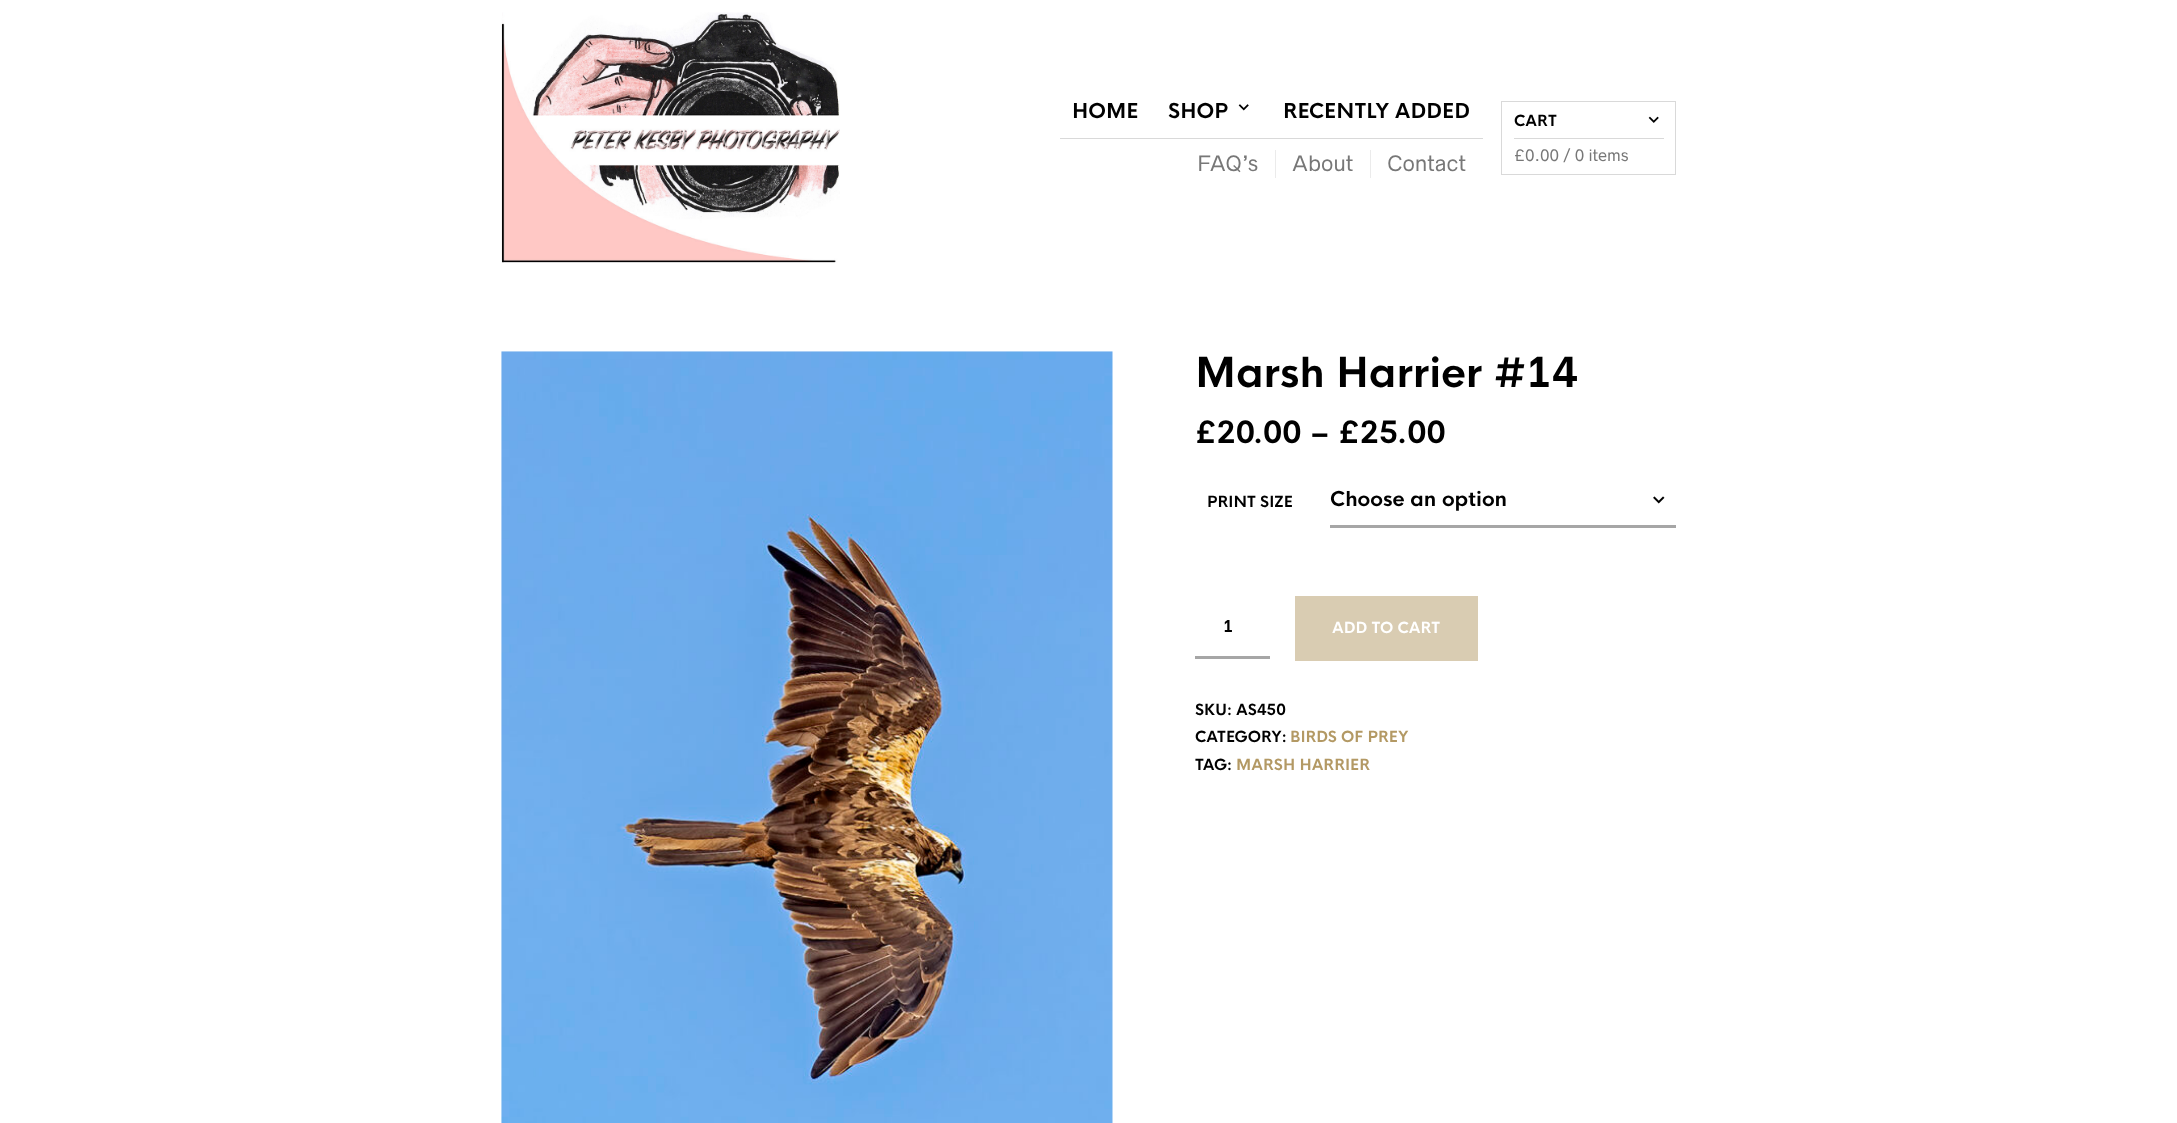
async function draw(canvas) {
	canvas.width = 2177;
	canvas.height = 1123;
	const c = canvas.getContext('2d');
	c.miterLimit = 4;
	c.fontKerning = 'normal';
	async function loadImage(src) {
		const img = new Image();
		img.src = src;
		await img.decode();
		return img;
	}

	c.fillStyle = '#fff';
	c.fillRect(0, 0, 2177, 1123);
	c.drawImage(await loadImage('img1.png'), 501, 12, 339, 251);
	c.fillStyle = '#d9d9d9';
	c.fillRect(1060, 138, 423, 1);
	c.font = 'bold 20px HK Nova';
	c.fillStyle = '#000';
	c.fillText('HOME', 1072, 118);
	c.drawImage(await loadImage('img2.png'), 1238, 104, 11, 7);
	c.fillText('SHOP', 1168, 118);
	c.fillText('RECENTLY ADDED', 1283, 118);
	c.font = '20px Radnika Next';
	c.fillStyle = '#777';
	c.fillText('FAQ’s', 1197, 171);
	c.fillStyle = '#ebebeb';
	c.fillRect(1275, 150, 1, 28);
	c.fillStyle = '#777';
	c.fillText('About', 1292, 171);
	c.fillStyle = '#ebebeb';
	c.fillRect(1370, 150, 1, 28);
	c.fillStyle = '#777';
	c.fillText('Contact', 1387, 171);
	c.strokeStyle = '#d9d9d9';
	c.strokeRect(1501.5, 101.5, 174, 73);
	c.fillStyle = '#d9d9d9';
	c.fillRect(1514, 138, 150, 1);
	c.font = 'bold 15px HK Nova';
	c.fillStyle = '#000';
	c.fillText('CART', 1514, 126);
	c.drawImage(await loadImage('img3.png'), 1648, 116, 11, 7);
	c.font = '15px Radnika Next';
	c.fillStyle = '#777';
	c.fillText('£0.00 / 0 items', 1514, 161);
	c.drawImage(await loadImage('img4.png'), 501, 351, 612, 772);
	c.font = 'bold 40.5px HK Nova';
	c.fillStyle = '#000';
	c.fillText('Marsh Harrier #14', 1195, 387);
	c.font = 'bold 30px HK Nova';
	c.fillText('£20.00 – £25.00', 1195, 443);
	c.font = 'bold 15px HK Nova';
	c.fillText('PRINT SIZE', 1207, 507);
	c.drawImage(await loadImage('img5.png'), 1653, 496, 12, 8);
	c.fillStyle = '#a6a6a6';
	c.fillRect(1330, 525, 346, 3);
	c.font = 'bold 20px HK Nova';
	c.fillStyle = '#000';
	c.fillText('Choose an option', 1330, 506);
	c.fillStyle = '#a6a6a6';
	c.fillRect(1195, 656, 75, 3);
	c.font = 'bold 16px HK Nova';
	c.fillStyle = '#000';
	c.fillText('1', 1223, 632);
	c.fillStyle = '#d9ccb2';
	c.fillRect(1295, 596, 183, 65);
	c.font = 'bold 15px HK Nova';
	c.fillStyle = '#fff';
	c.fillText('ADD TO CART', 1332, 633);
	c.fillStyle = '#000';
	c.fillText('SKU: AS450', 1195, 715);
	c.fillText('CATEGORY:', 1195, 742);
	c.fillStyle = '#b39964';
	c.fillText('BIRDS OF PREY', 1290, 742);
	c.fillStyle = '#000';
	c.fillText('TAG:', 1195, 770);
	c.fillStyle = '#b39964';
	c.fillText('MARSH HARRIER', 1236, 770);
}

draw(document.querySelector('canvas'));
